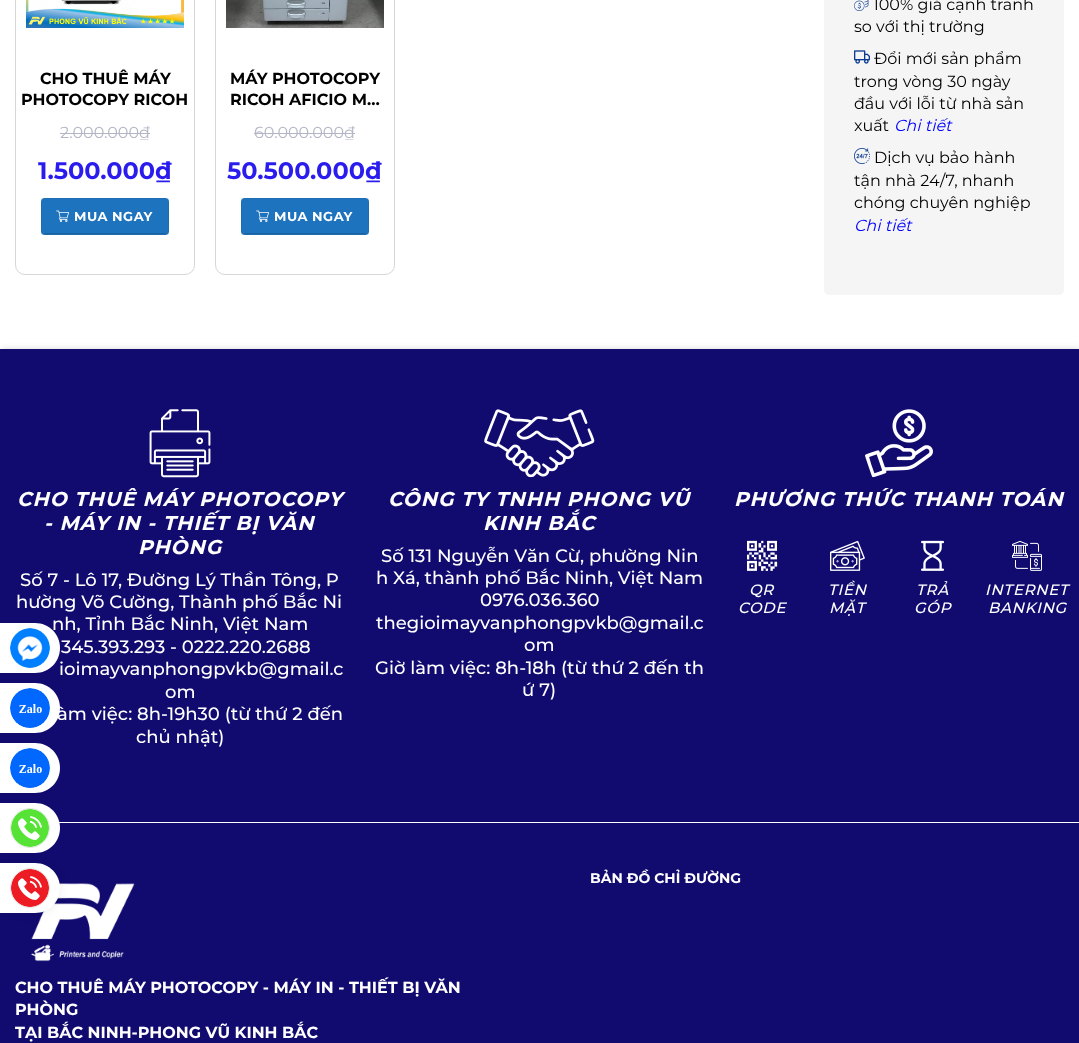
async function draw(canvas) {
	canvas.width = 1079;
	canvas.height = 1043;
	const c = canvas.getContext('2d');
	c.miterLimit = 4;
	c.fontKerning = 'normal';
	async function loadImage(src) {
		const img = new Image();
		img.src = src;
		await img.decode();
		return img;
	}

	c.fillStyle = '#fff';
	c.fillRect(0, 0, 1079, 1043);
	c.beginPath();
	c.roundRect(15.5, -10.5, 179, 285, 9.5);
	c.strokeStyle = '#d7d7d7';
	c.stroke();
	c.drawImage(await loadImage('img1.png'), 26, 0, 158, 28);
	c.font = 'bold 16px Montserrat';
	c.fillStyle = '#000';
	c.fillText('CHO THUÊ MÁY', 40, 84);
	c.fillText('PHOTOCOPY RICOH', 21, 105);
	c.font = '16px Montserrat';
	c.fillStyle = '#b4b6c5';
	c.fillText('2.000.000₫', 60, 138);
	c.fillRect(60, 133, 90, 1);
	c.font = 'bold 24px Montserrat';
	c.fillStyle = '#291ced';
	c.fillText('1.500.000₫', 38, 179);
	c.fillStyle = '#1e73be';
	c.beginPath();
	c.roundRect(41, 198, 128, 37, 4);
	c.fill();
	c.strokeStyle = '#0000000d';
	c.strokeRect(41.5, 198.5, 127, 36);
	c.drawImage(await loadImage('img2.png'), 56, 210, 13, 12);
	c.letterSpacing = '0.5px';
	c.font = 'bold 13px Montserrat';
	c.fillStyle = '#fff';
	c.fillText('MUA NGAY', 74, 221);
	c.fillStyle = '#1962a1';
	c.beginPath();
	c.moveTo(43, 233);
	c.lineTo(45, 234);
	c.lineTo(165, 234);
	c.lineTo(167, 233);
	c.closePath();
	c.fill();
	c.beginPath();
	c.roundRect(215.5, -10.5, 179, 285, 9.5);
	c.strokeStyle = '#d7d7d7';
	c.stroke();
	c.drawImage(await loadImage('img3.png'), 226, 0, 158, 28);
	c.letterSpacing = '0px';
	c.font = 'bold 16px Montserrat';
	c.fillStyle = '#000';
	c.fillText('MÁY PHOTOCOPY', 230, 84);
	c.fillText('RICOH AFICIO M…', 230, 105);
	c.font = '16px Montserrat';
	c.fillStyle = '#b4b6c5';
	c.fillText('60.000.000₫', 254, 138);
	c.fillRect(254, 133, 101, 1);
	c.font = 'bold 24px Montserrat';
	c.fillStyle = '#291ced';
	c.fillText('50.500.000₫', 227, 179);
	c.fillStyle = '#1e73be';
	c.beginPath();
	c.roundRect(241, 198, 128, 37, 4);
	c.fill();
	c.strokeStyle = '#0000000d';
	c.strokeRect(241.5, 198.5, 127, 36);
	c.drawImage(await loadImage('img2.png'), 256, 210, 13, 12);
	c.letterSpacing = '0.5px';
	c.font = 'bold 13px Montserrat';
	c.fillStyle = '#fff';
	c.fillText('MUA NGAY', 274, 221);
	c.fillStyle = '#1962a1';
	c.beginPath();
	c.moveTo(243, 233);
	c.lineTo(245, 234);
	c.lineTo(365, 234);
	c.lineTo(367, 233);
	c.closePath();
	c.fill();
	c.fillStyle = '#f5f5f5';
	c.beginPath();
	c.roundRect(824, -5, 240, 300, 5);
	c.fill();
	c.drawImage(await loadImage('img4.png'), 854, 0, 15, 11);
	c.letterSpacing = '0px';
	c.font = '16px Montserrat';
	c.fillStyle = '#000';
	c.fillText('100% giá cạnh tranh', 873, 10);
	c.fillText('so với thị trường', 854, 32);
	c.drawImage(await loadImage('img5.png'), 854, 50, 16, 14);
	for (const [text, x, y] of [
		['Đổi mới sản phẩm', 874, 64],
		['trong vòng 30 ngày', 854, 87],
		['đầu với lỗi từ nhà sản', 854, 109],
		['xuất', 854, 131],
	]) {
		c.fillText(text, x, y);
	}
	c.font = 'italic 16px Montserrat';
	c.fillStyle = '#00f';
	c.fillText('Chi tiết', 894, 131);
	c.drawImage(await loadImage('img6.png'), 854, 148, 16, 16);
	c.font = '16px Montserrat';
	c.fillStyle = '#000';
	for (const [text, x, y] of [
		['Dịch vụ bảo hành', 874, 163],
		['tận nhà 24/7, nhanh', 854, 186],
		['chóng chuyên nghiệp', 854, 208],
	]) {
		c.fillText(text, x, y);
	}
	c.font = 'italic 16px Montserrat';
	c.fillStyle = '#00f';
	c.fillText('Chi tiết', 854, 231);
	c.fillStyle = '#00000029';
	c.filter = 'blur(3px)';
	c.beginPath();
	c.rect(2, 349, 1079, 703);
	c.fill();
	c.filter = 'none';
	c.fillStyle = '#110b70';
	c.fillRect(0, 349, 1079, 694);
	c.drawImage(await loadImage('img7.png'), 149, 409, 62, 69);
	c.letterSpacing = '1px';
	c.font = 'italic bold 20px Montserrat';
	c.fillStyle = '#fff';
	for (const [text, x, y] of [
		['CHO THUÊ MÁY PHOTOCOPY', 17, 506],
		['- MÁY IN - THIẾT BỊ VĂN', 44, 530],
		['PHÒNG', 138, 554],
	]) {
		c.fillText(text, x, y);
	}
	c.letterSpacing = '0px';
	c.font = '500 18px Montserrat';
	for (const [text, x, y] of [
		['Số 7 - Lô 17, Đường Lý Thần Tông, P', 20, 586],
		['hường Võ Cường, Thành phố Bắc Ni', 16, 608],
		['nh, Tỉnh Bắc Ninh, Việt Nam', 52, 630],
		['345.393.293 - 0222.220.2688', 61, 653],
		['ioimayvanphongpvkb@gmail.c', 59, 675],
		['om', 165, 698],
		['àm việc: 8h-19h30 (từ thứ 2 đến', 57, 720],
		['chủ nhật)', 136, 743],
	]) {
		c.fillText(text, x, y);
	}
	c.drawImage(await loadImage('img8.png'), 484, 409, 111, 69);
	c.letterSpacing = '1px';
	c.font = 'italic bold 20px Montserrat';
	c.fillText('CÔNG TY TNHH PHONG VŨ', 388, 506);
	c.fillText('KINH BẮC', 483, 530);
	c.letterSpacing = '0px';
	c.font = '500 18px Montserrat';
	for (const [text, x, y] of [
		['Số 131 Nguyễn Văn Cừ, phường Nin', 381, 562],
		['h Xá, thành phố Bắc Ninh, Việt Nam', 376, 584],
		['0976.036.360', 480, 606],
		['thegioimayvanphongpvkb@gmail.c', 376, 629],
		['om', 524, 651],
		['Giờ làm việc: 8h-18h (từ thứ 2 đến th', 375, 674],
		['ứ 7)', 522, 696],
	]) {
		c.fillText(text, x, y);
	}
	c.drawImage(await loadImage('img9.png'), 865, 409, 68, 69);
	c.letterSpacing = '1px';
	c.font = 'italic bold 20px Montserrat';
	c.fillText('PHƯƠNG THỨC THANH TOÁN', 734, 506);
	c.drawImage(await loadImage('img10.png'), 747, 540, 31, 31);
	c.letterSpacing = '0.75px';
	c.font = 'italic 500 15px Montserrat';
	c.fillText('QR', 749, 595);
	c.fillText('CODE', 738, 613);
	c.drawImage(await loadImage('img11.png'), 830, 540, 35, 31);
	c.fillText('TIỀN', 828, 595);
	c.fillText('MẶT', 829, 613);
	c.drawImage(await loadImage('img12.png'), 921, 540, 24, 31);
	c.fillText('TRẢ', 916, 595);
	c.fillText('GÓP', 914, 613);
	c.drawImage(await loadImage('img13.png'), 1012, 540, 30, 31);
	c.fillText('INTERNET', 985, 595);
	c.fillText('BANKING', 988, 613);
	c.fillRect(59, 822, 1020, 1);
	c.letterSpacing = '0px';
	c.font = 'bold 14px Montserrat';
	c.fillText('BẢN ĐỒ CHỈ ĐƯỜNG', 590, 883);
	c.drawImage(await loadImage('img14.png'), 31, 883, 104, 79);
	c.font = 'bold 16px Montserrat';
	for (const [text, x, y] of [
		['CHO THUÊ MÁY PHOTOCOPY - MÁY IN - THIẾT BỊ VĂN', 15, 993],
		['PHÒNG', 15, 1015],
		['TẠI BẮC NINH-PHONG VŨ KINH BẮC', 15, 1038],
	]) {
		c.fillText(text, x, y);
	}
	c.beginPath();
	c.moveTo(-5, 623);
	c.lineTo(35, 623);
	c.bezierCurveTo(49, 623, 60, 634, 60, 648);
	c.bezierCurveTo(60, 662, 49, 673, 35, 673);
	c.lineTo(-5, 673);
	c.closePath();
	c.fill();
	c.drawImage(await loadImage('img15.png'), 10, 628, 40, 40);
	c.beginPath();
	c.moveTo(-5, 683);
	c.lineTo(35, 683);
	c.bezierCurveTo(49, 683, 60, 694, 60, 708);
	c.bezierCurveTo(60, 722, 49, 733, 35, 733);
	c.lineTo(-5, 733);
	c.closePath();
	c.fill();
	c.drawImage(await loadImage('img16.png'), 10, 688, 40, 40);
	c.beginPath();
	c.moveTo(-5, 743);
	c.lineTo(35, 743);
	c.bezierCurveTo(49, 743, 60, 754, 60, 768);
	c.bezierCurveTo(60, 782, 49, 793, 35, 793);
	c.lineTo(-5, 793);
	c.closePath();
	c.fill();
	c.drawImage(await loadImage('img16.png'), 10, 748, 40, 40);
	c.beginPath();
	c.moveTo(-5, 803);
	c.lineTo(35, 803);
	c.bezierCurveTo(49, 803, 60, 814, 60, 828);
	c.bezierCurveTo(60, 842, 49, 853, 35, 853);
	c.lineTo(-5, 853);
	c.closePath();
	c.fill();
	c.fillStyle = '#00000014';
	c.filter = 'blur(5px)';
	c.beginPath();
	c.roundRect(-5, 863, 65, 50, 25);
	c.fill();
	c.filter = 'none';
	c.beginPath();
	c.arc(30, 828, 19.5, 0, 2 * Math.PI);
	c.strokeStyle = '#e5e5e5';
	c.stroke();
	c.drawImage(await loadImage('img17.png'), 11, 809, 38, 38);
	c.fillStyle = '#fff';
	c.beginPath();
	c.moveTo(-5, 863);
	c.lineTo(35, 863);
	c.bezierCurveTo(49, 863, 60, 874, 60, 888);
	c.bezierCurveTo(60, 902, 49, 913, 35, 913);
	c.lineTo(-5, 913);
	c.closePath();
	c.fill();
	c.beginPath();
	c.arc(30, 888, 19.5, 0, 2 * Math.PI);
	c.stroke();
	c.drawImage(await loadImage('img18.png'), 11, 869, 38, 38);
}

draw(document.querySelector('canvas'));
